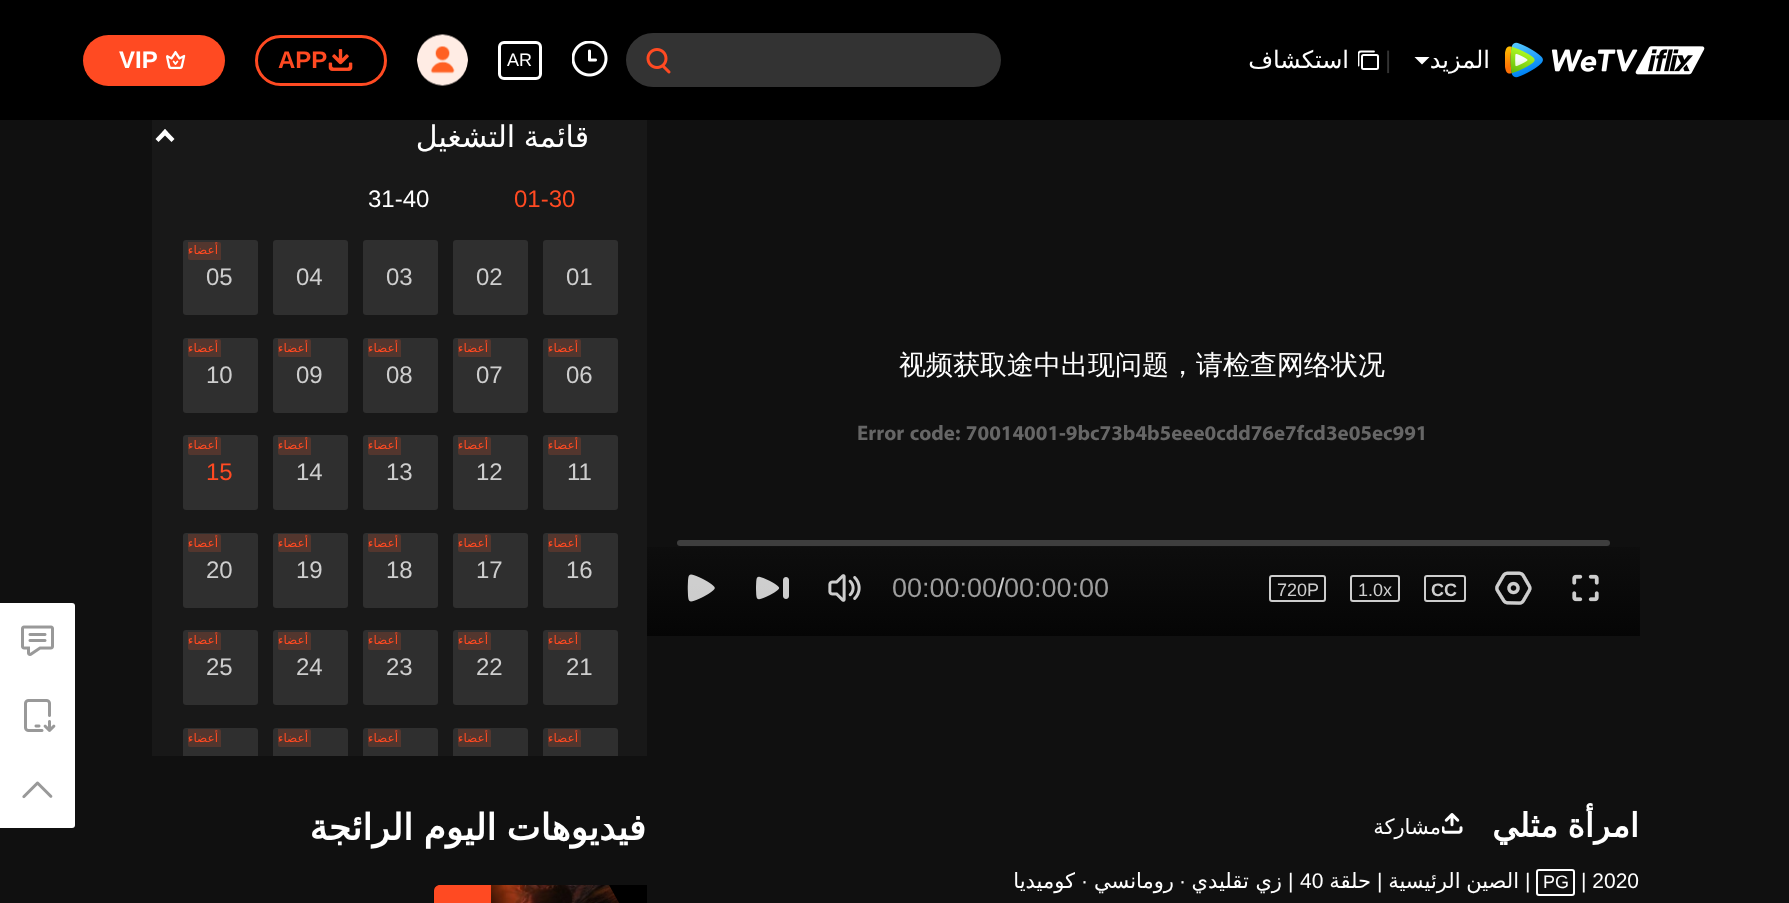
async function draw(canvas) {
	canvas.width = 1789;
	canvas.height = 903;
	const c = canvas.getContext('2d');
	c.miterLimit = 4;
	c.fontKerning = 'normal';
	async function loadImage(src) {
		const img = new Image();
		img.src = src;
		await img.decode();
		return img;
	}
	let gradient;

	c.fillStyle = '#101010';
	c.fillRect(0, 0, 1789, 903);
	c.fillStyle = '#000';
	c.fillRect(0, 0, 1789, 120);
	c.drawImage(await loadImage('img1.png'), 1505, 42, 200, 36);
	c.direction = 'rtl';
	c.font = '24px DejaVu Sans';
	c.fillStyle = '#fff';
	c.fillText('المزيد', 1490, 68);
	c.beginPath();
	c.moveTo(1414.5, 57);
	c.lineTo(1429.5, 57);
	c.lineTo(1422, 64.5);
	c.closePath();
	c.fill();
	c.direction = 'ltr';
	c.font = '24px Liberation Sans';
	c.fillStyle = '#333';
	c.fillText('|', 1385, 68);
	c.beginPath();
	c.roundRect(1362, 55, 16, 14, 1.5);
	c.strokeStyle = '#fff';
	c.lineWidth = 2;
	c.stroke();
	c.save();
	c.beginPath();
	c.rect(1358, 50, 21, 21);
	c.clip();
	c.beginPath();
	c.moveTo(1374, 51.5);
	c.lineTo(1361, 51.5);
	c.bezierCurveTo(1359.5, 51.5, 1358.5, 52.5, 1358.5, 54);
	c.lineTo(1358.5, 65.5);
	c.lineWidth = 1.8;
	c.lineCap = 'round';
	c.stroke();
	c.restore();
	c.direction = 'rtl';
	c.font = '24px DejaVu Sans';
	c.fillStyle = '#fff';
	c.fillText('استكشاف', 1349, 68);
	c.fillStyle = '#333';
	c.beginPath();
	c.roundRect(626, 33, 375, 54, 27);
	c.fill();
	c.drawImage(await loadImage('img2.png'), 646, 48, 25, 26);
	c.drawImage(await loadImage('img3.png'), 572, 41, 36, 36);
	c.beginPath();
	c.roundRect(499.5, 42.5, 41, 36, 4.5);
	c.lineWidth = 3;
	c.stroke();
	c.direction = 'ltr';
	c.font = '18px Liberation Sans';
	c.fillStyle = '#fff';
	c.fillText('AR', 507, 66);
	c.drawImage(await loadImage('img4.png'), 417, 34, 51, 52);
	c.beginPath();
	c.roundRect(256.5, 36.5, 129, 48, 24);
	c.strokeStyle = '#ff4a22';
	c.stroke();
	c.drawImage(await loadImage('img5.png'), 328, 49, 25, 22);
	c.font = 'bold 24px Liberation Sans';
	c.fillStyle = '#ff4a22';
	c.fillText('APP', 278, 68);
	c.beginPath();
	c.roundRect(83, 35, 142, 51, 25.5);
	c.fill();
	c.drawImage(await loadImage('img6.png'), 166, 50, 20, 20);
	c.fillStyle = '#fff';
	c.fillText('VIP', 119, 68);
	c.font = '500 27px WenQuanYi Zen Hei';
	c.fillText('视频获取途中出现问题，请检查网络状况', 899, 374);
	c.font = 'bold 21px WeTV';
	c.fillStyle = '#666';
	c.fillText('Error code: 70014001-9bc73b4b5eee0cdd76e7fcd3e05ec991', 857, 440);
	gradient = c.createLinearGradient(1143, 510, 1143, 636);
	gradient.addColorStop(0, '#111');
	gradient.addColorStop(1, '#050505');
	c.fillStyle = gradient;
	c.fillRect(647, 547, 993, 89);
	c.fillStyle = '#3e3e3e';
	c.beginPath();
	c.roundRect(677, 540, 933, 6, 3);
	c.fill();
	c.drawImage(await loadImage('img7.png'), 1572, 574, 27, 28);
	c.drawImage(await loadImage('img8.png'), 1495, 571, 37, 34);
	c.beginPath();
	c.roundRect(1425, 576, 40, 25, 2);
	c.strokeStyle = '#ffffffcc';
	c.lineWidth = 2;
	c.stroke();
	c.font = 'bold 18px Liberation Sans';
	c.fillStyle = '#cecece';
	c.fillText('CC', 1431, 596);
	c.beginPath();
	c.roundRect(1351, 576, 48, 25, 2);
	c.stroke();
	c.font = '18px Liberation Sans';
	c.fillText('1.0x', 1358, 596);
	c.beginPath();
	c.roundRect(1270, 576, 55, 25, 2);
	c.stroke();
	c.fillText('720P', 1277, 596);
	c.font = '27px Liberation Sans';
	c.fillStyle = '#9d9d9d';
	c.fillText('00:00:00', 1004, 597);
	c.fillStyle = '#cecece';
	c.fillText('/', 997, 597);
	c.save();
	c.beginPath();
	c.rect(893, 564, 217, 48);
	c.clip();
	c.fillStyle = '#9d9d9d';
	c.fillText('00:00:00', 892, 597);
	c.restore();
	c.drawImage(await loadImage('img9.png'), 828, 574, 33, 28);
	c.drawImage(await loadImage('img10.png'), 756, 576, 33, 24);
	c.drawImage(await loadImage('img11.png'), 687, 574, 28, 28);
	c.fillStyle = '#181818';
	c.fillRect(152, 120, 495, 636);
	c.wordSpacing = '-1px';
	c.direction = 'rtl';
	c.font = '30px DejaVu Sans';
	c.fillStyle = '#fff';
	c.fillText('قائمة التشغيل', 589, 147);
	c.beginPath();
	c.moveTo(158.5, 142);
	c.lineTo(155.5, 139);
	c.lineTo(165, 129);
	c.lineTo(168, 132.5);
	c.closePath();
	c.fill();
	c.beginPath();
	c.moveTo(171.5, 142);
	c.lineTo(162, 132.5);
	c.lineTo(165, 129);
	c.lineTo(174.5, 139);
	c.closePath();
	c.fill();
	c.wordSpacing = '0px';
	c.direction = 'ltr';
	c.font = '24px Liberation Sans';
	c.fillStyle = '#ff4a22';
	c.fillText('01-30', 514, 207);
	c.fillStyle = '#fff';
	c.fillText('31-40', 368, 207);
	c.fillStyle = '#2f2f2f';
	c.beginPath();
	c.roundRect(543, 240, 75, 75, 3);
	c.fill();
	c.fillStyle = '#cecece';
	c.fillText('01', 566, 285);
	c.fillStyle = '#2f2f2f';
	c.beginPath();
	c.roundRect(453, 240, 75, 75, 3);
	c.fill();
	c.fillStyle = '#cecece';
	c.fillText('02', 476, 285);
	c.fillStyle = '#2f2f2f';
	c.beginPath();
	c.roundRect(363, 240, 75, 75, 3);
	c.fill();
	c.fillStyle = '#cecece';
	c.fillText('03', 386, 285);
	c.fillStyle = '#2f2f2f';
	c.beginPath();
	c.roundRect(273, 240, 75, 75, 3);
	c.fill();
	c.fillStyle = '#cecece';
	c.fillText('04', 296, 285);
	c.fillStyle = '#2f2f2f';
	c.beginPath();
	c.roundRect(183, 240, 75, 75, 3);
	c.fill();
	c.fillStyle = '#53362e';
	c.beginPath();
	c.roundRect(188, 242, 33, 18, [0, 2, 0, 2]);
	c.fill();
	c.direction = 'rtl';
	c.font = '12px DejaVu Sans';
	c.fillStyle = '#ff4a22';
	c.fillText('أعضاء', 218, 254);
	c.direction = 'ltr';
	c.font = '24px Liberation Sans';
	c.fillStyle = '#cecece';
	c.fillText('05', 206, 285);
	c.fillStyle = '#2f2f2f';
	c.beginPath();
	c.roundRect(543, 338, 75, 75, 3);
	c.fill();
	c.fillStyle = '#53362e';
	c.beginPath();
	c.roundRect(548, 339, 33, 18, [0, 2, 0, 2]);
	c.fill();
	c.direction = 'rtl';
	c.font = '12px DejaVu Sans';
	c.fillStyle = '#ff4a22';
	c.fillText('أعضاء', 578, 352);
	c.direction = 'ltr';
	c.font = '24px Liberation Sans';
	c.fillStyle = '#cecece';
	c.fillText('06', 566, 383);
	c.fillStyle = '#2f2f2f';
	c.beginPath();
	c.roundRect(453, 338, 75, 75, 3);
	c.fill();
	c.fillStyle = '#53362e';
	c.beginPath();
	c.roundRect(458, 339, 33, 18, [0, 2, 0, 2]);
	c.fill();
	c.direction = 'rtl';
	c.font = '12px DejaVu Sans';
	c.fillStyle = '#ff4a22';
	c.fillText('أعضاء', 488, 352);
	c.direction = 'ltr';
	c.font = '24px Liberation Sans';
	c.fillStyle = '#cecece';
	c.fillText('07', 476, 383);
	c.fillStyle = '#2f2f2f';
	c.beginPath();
	c.roundRect(363, 338, 75, 75, 3);
	c.fill();
	c.fillStyle = '#53362e';
	c.beginPath();
	c.roundRect(368, 339, 33, 18, [0, 2, 0, 2]);
	c.fill();
	c.direction = 'rtl';
	c.font = '12px DejaVu Sans';
	c.fillStyle = '#ff4a22';
	c.fillText('أعضاء', 398, 352);
	c.direction = 'ltr';
	c.font = '24px Liberation Sans';
	c.fillStyle = '#cecece';
	c.fillText('08', 386, 383);
	c.fillStyle = '#2f2f2f';
	c.beginPath();
	c.roundRect(273, 338, 75, 75, 3);
	c.fill();
	c.fillStyle = '#53362e';
	c.beginPath();
	c.roundRect(278, 339, 33, 18, [0, 2, 0, 2]);
	c.fill();
	c.direction = 'rtl';
	c.font = '12px DejaVu Sans';
	c.fillStyle = '#ff4a22';
	c.fillText('أعضاء', 308, 352);
	c.direction = 'ltr';
	c.font = '24px Liberation Sans';
	c.fillStyle = '#cecece';
	c.fillText('09', 296, 383);
	c.fillStyle = '#2f2f2f';
	c.beginPath();
	c.roundRect(183, 338, 75, 75, 3);
	c.fill();
	c.fillStyle = '#53362e';
	c.beginPath();
	c.roundRect(188, 339, 33, 18, [0, 2, 0, 2]);
	c.fill();
	c.direction = 'rtl';
	c.font = '12px DejaVu Sans';
	c.fillStyle = '#ff4a22';
	c.fillText('أعضاء', 218, 352);
	c.direction = 'ltr';
	c.font = '24px Liberation Sans';
	c.fillStyle = '#cecece';
	c.fillText('10', 206, 383);
	c.fillStyle = '#2f2f2f';
	c.beginPath();
	c.roundRect(543, 435, 75, 75, 3);
	c.fill();
	c.fillStyle = '#53362e';
	c.beginPath();
	c.roundRect(548, 437, 33, 18, [0, 2, 0, 2]);
	c.fill();
	c.direction = 'rtl';
	c.font = '12px DejaVu Sans';
	c.fillStyle = '#ff4a22';
	c.fillText('أعضاء', 578, 449);
	c.direction = 'ltr';
	c.font = '24px Liberation Sans';
	c.fillStyle = '#cecece';
	c.fillText('11', 567, 480);
	c.fillStyle = '#2f2f2f';
	c.beginPath();
	c.roundRect(453, 435, 75, 75, 3);
	c.fill();
	c.fillStyle = '#53362e';
	c.beginPath();
	c.roundRect(458, 437, 33, 18, [0, 2, 0, 2]);
	c.fill();
	c.direction = 'rtl';
	c.font = '12px DejaVu Sans';
	c.fillStyle = '#ff4a22';
	c.fillText('أعضاء', 488, 449);
	c.direction = 'ltr';
	c.font = '24px Liberation Sans';
	c.fillStyle = '#cecece';
	c.fillText('12', 476, 480);
	c.fillStyle = '#2f2f2f';
	c.beginPath();
	c.roundRect(363, 435, 75, 75, 3);
	c.fill();
	c.fillStyle = '#53362e';
	c.beginPath();
	c.roundRect(368, 437, 33, 18, [0, 2, 0, 2]);
	c.fill();
	c.direction = 'rtl';
	c.font = '12px DejaVu Sans';
	c.fillStyle = '#ff4a22';
	c.fillText('أعضاء', 398, 449);
	c.direction = 'ltr';
	c.font = '24px Liberation Sans';
	c.fillStyle = '#cecece';
	c.fillText('13', 386, 480);
	c.fillStyle = '#2f2f2f';
	c.beginPath();
	c.roundRect(273, 435, 75, 75, 3);
	c.fill();
	c.fillStyle = '#53362e';
	c.beginPath();
	c.roundRect(278, 437, 33, 18, [0, 2, 0, 2]);
	c.fill();
	c.direction = 'rtl';
	c.font = '12px DejaVu Sans';
	c.fillStyle = '#ff4a22';
	c.fillText('أعضاء', 308, 449);
	c.direction = 'ltr';
	c.font = '24px Liberation Sans';
	c.fillStyle = '#cecece';
	c.fillText('14', 296, 480);
	c.fillStyle = '#2f2f2f';
	c.beginPath();
	c.roundRect(183, 435, 75, 75, 3);
	c.fill();
	c.fillStyle = '#53362e';
	c.beginPath();
	c.roundRect(188, 437, 33, 18, [0, 2, 0, 2]);
	c.fill();
	c.direction = 'rtl';
	c.font = '12px DejaVu Sans';
	c.fillStyle = '#ff4a22';
	c.fillText('أعضاء', 218, 449);
	c.direction = 'ltr';
	c.font = '24px Liberation Sans';
	c.fillText('15', 206, 480);
	c.fillStyle = '#2f2f2f';
	c.beginPath();
	c.roundRect(543, 533, 75, 75, 3);
	c.fill();
	c.fillStyle = '#53362e';
	c.beginPath();
	c.roundRect(548, 534, 33, 18, [0, 2, 0, 2]);
	c.fill();
	c.direction = 'rtl';
	c.font = '12px DejaVu Sans';
	c.fillStyle = '#ff4a22';
	c.fillText('أعضاء', 578, 547);
	c.direction = 'ltr';
	c.font = '24px Liberation Sans';
	c.fillStyle = '#cecece';
	c.fillText('16', 566, 578);
	c.fillStyle = '#2f2f2f';
	c.beginPath();
	c.roundRect(453, 533, 75, 75, 3);
	c.fill();
	c.fillStyle = '#53362e';
	c.beginPath();
	c.roundRect(458, 534, 33, 18, [0, 2, 0, 2]);
	c.fill();
	c.direction = 'rtl';
	c.font = '12px DejaVu Sans';
	c.fillStyle = '#ff4a22';
	c.fillText('أعضاء', 488, 547);
	c.direction = 'ltr';
	c.font = '24px Liberation Sans';
	c.fillStyle = '#cecece';
	c.fillText('17', 476, 578);
	c.fillStyle = '#2f2f2f';
	c.beginPath();
	c.roundRect(363, 533, 75, 75, 3);
	c.fill();
	c.fillStyle = '#53362e';
	c.beginPath();
	c.roundRect(368, 534, 33, 18, [0, 2, 0, 2]);
	c.fill();
	c.direction = 'rtl';
	c.font = '12px DejaVu Sans';
	c.fillStyle = '#ff4a22';
	c.fillText('أعضاء', 398, 547);
	c.direction = 'ltr';
	c.font = '24px Liberation Sans';
	c.fillStyle = '#cecece';
	c.fillText('18', 386, 578);
	c.fillStyle = '#2f2f2f';
	c.beginPath();
	c.roundRect(273, 533, 75, 75, 3);
	c.fill();
	c.fillStyle = '#53362e';
	c.beginPath();
	c.roundRect(278, 534, 33, 18, [0, 2, 0, 2]);
	c.fill();
	c.direction = 'rtl';
	c.font = '12px DejaVu Sans';
	c.fillStyle = '#ff4a22';
	c.fillText('أعضاء', 308, 547);
	c.direction = 'ltr';
	c.font = '24px Liberation Sans';
	c.fillStyle = '#cecece';
	c.fillText('19', 296, 578);
	c.fillStyle = '#2f2f2f';
	c.beginPath();
	c.roundRect(183, 533, 75, 75, 3);
	c.fill();
	c.fillStyle = '#53362e';
	c.beginPath();
	c.roundRect(188, 534, 33, 18, [0, 2, 0, 2]);
	c.fill();
	c.direction = 'rtl';
	c.font = '12px DejaVu Sans';
	c.fillStyle = '#ff4a22';
	c.fillText('أعضاء', 218, 547);
	c.direction = 'ltr';
	c.font = '24px Liberation Sans';
	c.fillStyle = '#cecece';
	c.fillText('20', 206, 578);
	c.fillStyle = '#2f2f2f';
	c.beginPath();
	c.roundRect(543, 630, 75, 75, 3);
	c.fill();
	c.fillStyle = '#53362e';
	c.beginPath();
	c.roundRect(548, 632, 33, 18, [0, 2, 0, 2]);
	c.fill();
	c.direction = 'rtl';
	c.font = '12px DejaVu Sans';
	c.fillStyle = '#ff4a22';
	c.fillText('أعضاء', 578, 644);
	c.direction = 'ltr';
	c.font = '24px Liberation Sans';
	c.fillStyle = '#cecece';
	c.fillText('21', 566, 675);
	c.fillStyle = '#2f2f2f';
	c.beginPath();
	c.roundRect(453, 630, 75, 75, 3);
	c.fill();
	c.fillStyle = '#53362e';
	c.beginPath();
	c.roundRect(458, 632, 33, 18, [0, 2, 0, 2]);
	c.fill();
	c.direction = 'rtl';
	c.font = '12px DejaVu Sans';
	c.fillStyle = '#ff4a22';
	c.fillText('أعضاء', 488, 644);
	c.direction = 'ltr';
	c.font = '24px Liberation Sans';
	c.fillStyle = '#cecece';
	c.fillText('22', 476, 675);
	c.fillStyle = '#2f2f2f';
	c.beginPath();
	c.roundRect(363, 630, 75, 75, 3);
	c.fill();
	c.fillStyle = '#53362e';
	c.beginPath();
	c.roundRect(368, 632, 33, 18, [0, 2, 0, 2]);
	c.fill();
	c.direction = 'rtl';
	c.font = '12px DejaVu Sans';
	c.fillStyle = '#ff4a22';
	c.fillText('أعضاء', 398, 644);
	c.direction = 'ltr';
	c.font = '24px Liberation Sans';
	c.fillStyle = '#cecece';
	c.fillText('23', 386, 675);
	c.fillStyle = '#2f2f2f';
	c.beginPath();
	c.roundRect(273, 630, 75, 75, 3);
	c.fill();
	c.fillStyle = '#53362e';
	c.beginPath();
	c.roundRect(278, 632, 33, 18, [0, 2, 0, 2]);
	c.fill();
	c.direction = 'rtl';
	c.font = '12px DejaVu Sans';
	c.fillStyle = '#ff4a22';
	c.fillText('أعضاء', 308, 644);
	c.direction = 'ltr';
	c.font = '24px Liberation Sans';
	c.fillStyle = '#cecece';
	c.fillText('24', 296, 675);
	c.fillStyle = '#2f2f2f';
	c.beginPath();
	c.roundRect(183, 630, 75, 75, 3);
	c.fill();
	c.fillStyle = '#53362e';
	c.beginPath();
	c.roundRect(188, 632, 33, 18, [0, 2, 0, 2]);
	c.fill();
	c.direction = 'rtl';
	c.font = '12px DejaVu Sans';
	c.fillStyle = '#ff4a22';
	c.fillText('أعضاء', 218, 644);
	c.direction = 'ltr';
	c.font = '24px Liberation Sans';
	c.fillStyle = '#cecece';
	c.fillText('25', 206, 675);
	c.fillStyle = '#2f2f2f';
	c.beginPath();
	c.roundRect(543, 728, 75, 28, [3, 3, 0, 0]);
	c.fill();
	c.fillStyle = '#53362e';
	c.beginPath();
	c.roundRect(548, 729, 33, 18, [0, 2, 0, 2]);
	c.fill();
	c.direction = 'rtl';
	c.font = '12px DejaVu Sans';
	c.fillStyle = '#ff4a22';
	c.fillText('أعضاء', 578, 742);
	c.fillStyle = '#2f2f2f';
	c.beginPath();
	c.roundRect(453, 728, 75, 28, [3, 3, 0, 0]);
	c.fill();
	c.fillStyle = '#53362e';
	c.beginPath();
	c.roundRect(458, 729, 33, 18, [0, 2, 0, 2]);
	c.fill();
	c.fillStyle = '#ff4a22';
	c.fillText('أعضاء', 488, 742);
	c.fillStyle = '#2f2f2f';
	c.beginPath();
	c.roundRect(363, 728, 75, 28, [3, 3, 0, 0]);
	c.fill();
	c.fillStyle = '#53362e';
	c.beginPath();
	c.roundRect(368, 729, 33, 18, [0, 2, 0, 2]);
	c.fill();
	c.fillStyle = '#ff4a22';
	c.fillText('أعضاء', 398, 742);
	c.fillStyle = '#2f2f2f';
	c.beginPath();
	c.roundRect(273, 728, 75, 28, [3, 3, 0, 0]);
	c.fill();
	c.fillStyle = '#53362e';
	c.beginPath();
	c.roundRect(278, 729, 33, 18, [0, 2, 0, 2]);
	c.fill();
	c.fillStyle = '#ff4a22';
	c.fillText('أعضاء', 308, 742);
	c.fillStyle = '#2f2f2f';
	c.beginPath();
	c.roundRect(183, 728, 75, 28, [3, 3, 0, 0]);
	c.fill();
	c.fillStyle = '#53362e';
	c.beginPath();
	c.roundRect(188, 729, 33, 18, [0, 2, 0, 2]);
	c.fill();
	c.fillStyle = '#ff4a22';
	c.fillText('أعضاء', 218, 742);
	c.wordSpacing = '-1px';
	c.font = 'bold 33px DejaVu Sans';
	c.fillStyle = '#fff';
	c.fillText('امرأة مثلي', 1639, 837);
	c.drawImage(await loadImage('img12.png'), 1442, 813, 21, 21);
	c.wordSpacing = '0px';
	c.font = '21px DejaVu Sans';
	c.fillText('مشاركة', 1441, 834);
	c.direction = 'ltr';
	c.font = '21px Liberation Sans';
	c.fillText('| 2020', 1581, 888);
	c.beginPath();
	c.roundRect(1537, 870, 37, 25, 2);
	c.strokeStyle = '#fff';
	c.stroke();
	c.font = '18px Liberation Sans';
	c.fillText('PG', 1543, 888);
	c.font = '21px Liberation Sans';
	c.fillText('|', 1525, 888);
	c.wordSpacing = '-1px';
	c.direction = 'rtl';
	c.font = '21px DejaVu Sans';
	c.fillText('الصين الرئيسية', 1519, 888);
	c.wordSpacing = '0px';
	c.direction = 'ltr';
	c.font = '21px Liberation Sans';
	c.fillText('|', 1377, 888);
	c.direction = 'rtl';
	c.font = '21px DejaVu Sans';
	c.fillText('حلقة', 1371, 888);
	c.direction = 'ltr';
	c.font = '21px Liberation Sans';
	c.fillText('40', 1300, 888);
	c.fillText('|', 1288, 888);
	c.direction = 'rtl';
	c.font = '21px DejaVu Sans';
	c.fillText('زي تقليدي', 1282, 888);
	c.font = '21px Liberation Sans';
	c.fillText('·', 1186, 888);
	c.font = '21px DejaVu Sans';
	c.fillText('رومانسي', 1174, 888);
	c.font = '21px Liberation Sans';
	c.fillText('·', 1088, 888);
	c.font = '21px DejaVu Sans';
	c.fillText('كوميديا', 1075, 888);
	c.wordSpacing = '-1px';
	c.font = 'bold 36px DejaVu Sans';
	c.fillText('فيديوهات اليوم الرائجة', 646, 840);
	c.drawImage(await loadImage('img13.png'), 433, 885, 186, 18);
	c.save();
	c.beginPath();
	c.rect(434, 885, 213, 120);
	c.clip();
	c.fillStyle = '#000';
	c.beginPath();
	c.moveTo(609, 884);
	c.lineTo(647, 884);
	c.lineTo(647, 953);
	c.lineTo(609, 885);
	c.closePath();
	c.fill();
	c.restore();
	c.fillStyle = '#ff4a22';
	c.beginPath();
	c.moveTo(440, 885);
	c.lineTo(491, 885);
	c.lineTo(491, 903);
	c.bezierCurveTo(491, 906.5, 488.5, 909, 485, 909);
	c.lineTo(434, 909);
	c.lineTo(434, 891);
	c.bezierCurveTo(434, 887.5, 436.5, 885, 440, 885);
	c.closePath();
	c.fill();
	c.fillStyle = '#fff';
	c.beginPath();
	c.roundRect(0, 603, 75, 225, [0, 3, 3, 0]);
	c.fill();
	c.drawImage(await loadImage('img14.png'), 21, 625, 33, 31);
	c.drawImage(await loadImage('img15.png'), 24, 699, 32, 33);
	c.drawImage(await loadImage('img16.png'), 22, 781, 31, 18);
}

draw(document.querySelector('canvas'));
